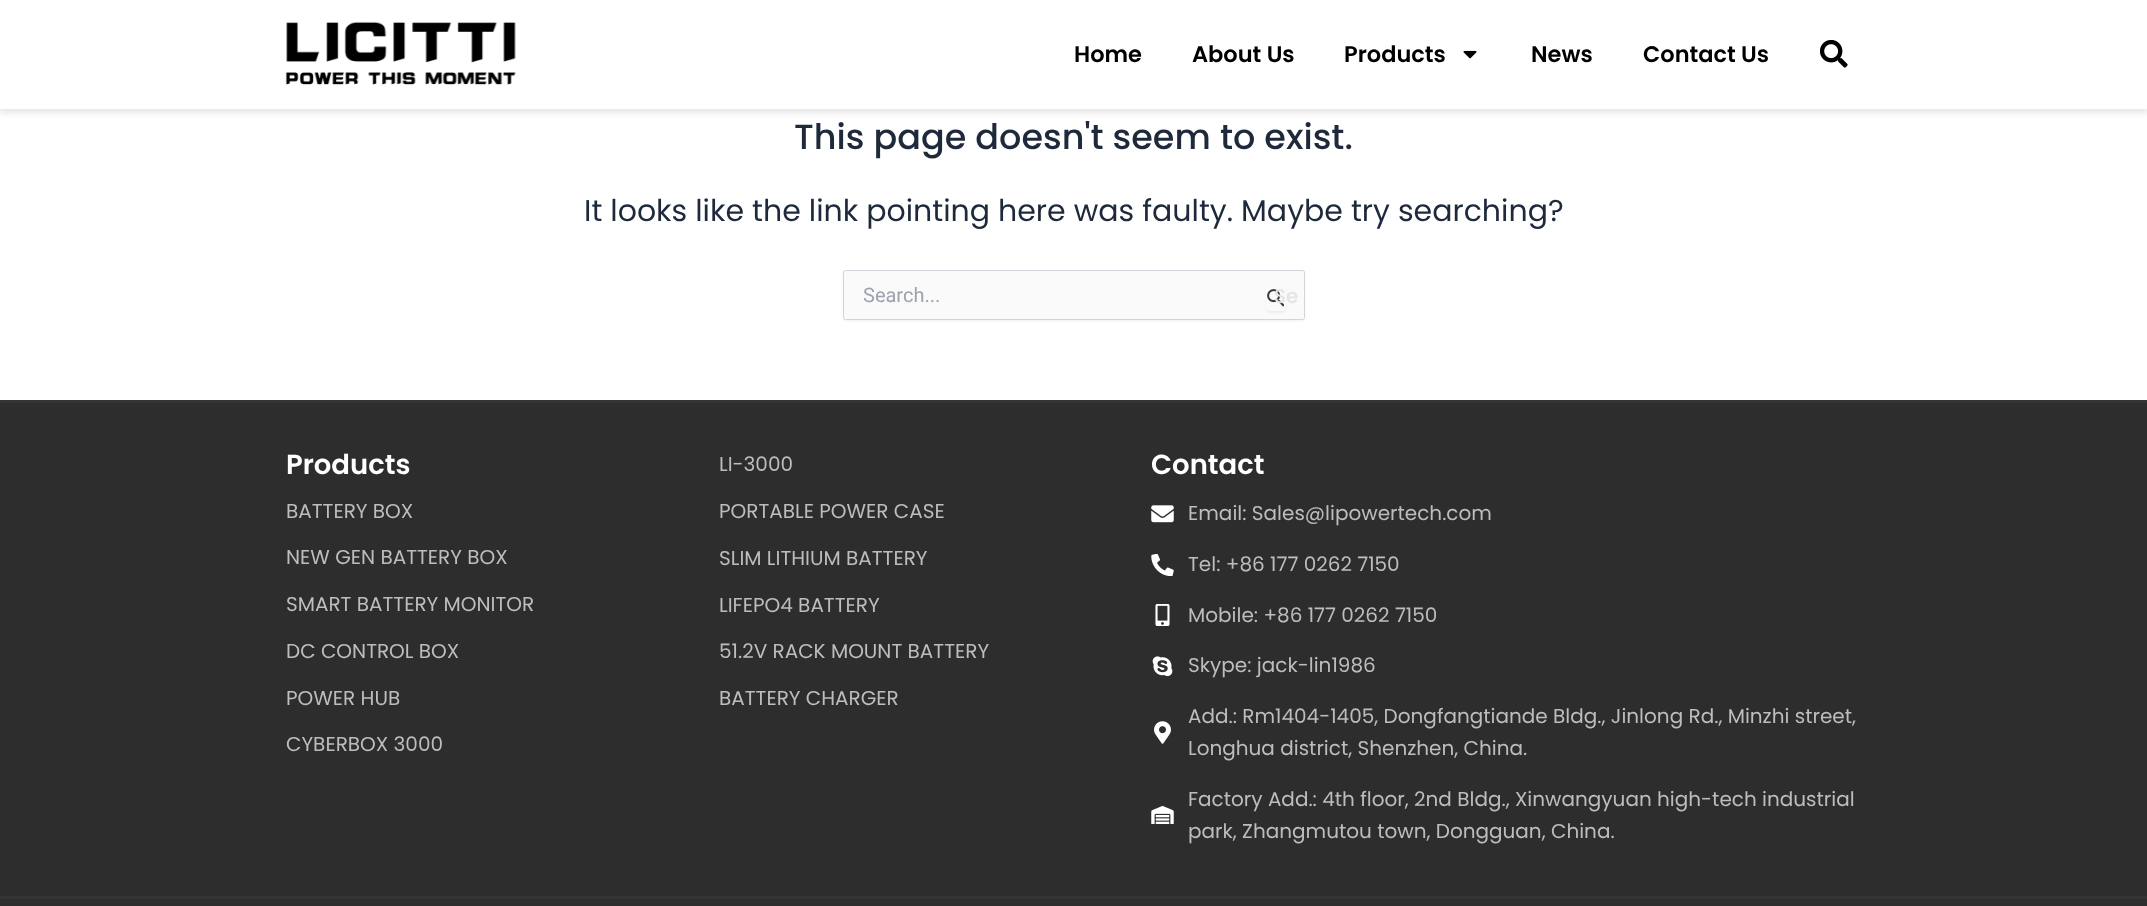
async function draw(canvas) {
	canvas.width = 2147;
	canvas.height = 906;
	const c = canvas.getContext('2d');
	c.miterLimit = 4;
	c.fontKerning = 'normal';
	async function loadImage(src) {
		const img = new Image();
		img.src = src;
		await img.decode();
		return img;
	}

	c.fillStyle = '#fff';
	c.fillRect(0, 0, 2147, 906);
	c.fillStyle = '#0000001a';
	c.filter = 'blur(3px)';
	c.beginPath();
	c.rect(0, 4, 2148, 109);
	c.fill();
	c.filter = 'none';
	c.fillStyle = '#fff';
	c.fillRect(0, 0, 2147, 109);
	c.drawImage(await loadImage('img1.png'), 285, 21, 231, 64);
	c.font = '600 22.5px Poppins';
	c.fillStyle = '#000';
	for (const [text, x, y] of [
		['Home', 1074, 62],
		['About Us', 1192, 62],
		['Products', 1344, 62],
	]) {
		c.fillText(text, x, y);
	}
	c.drawImage(await loadImage('img2.png'), 1463, 50, 14, 9);
	c.fillText('News', 1531, 62);
	c.fillText('Contact Us', 1643, 62);
	c.drawImage(await loadImage('img3.png'), 1820, 40, 28, 28);
	c.font = '500 35px Poppins';
	c.fillStyle = '#1e293b';
	c.fillText('This page doesn\'t seem to exist.', 794, 149);
	c.font = '30px Poppins';
	c.fillText('It looks like the link pointing here was faulty. Maybe try searching?', 584, 221);
	c.fillStyle = '#0000000d';
	c.filter = 'blur(1px)';
	c.beginPath();
	c.roundRect(843, 271, 462, 50, 2.5);
	c.fill();
	c.filter = 'none';
	c.fillStyle = '#fafafa';
	c.beginPath();
	c.roundRect(843.5, 270.5, 461, 49, 2);
	c.fill();
	c.strokeStyle = '#d1d5db';
	c.stroke();
	c.font = '20px Roboto';
	c.fillStyle = '#9ca3af';
	c.fillText('Search...', 863, 302);
	c.save();
	c.beginPath();
	c.moveTo(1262, 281);
	c.lineTo(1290, 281);
	c.lineTo(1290, 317);
	c.lineTo(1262, 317);
	c.closePath();
	c.moveTo(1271, 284);
	c.lineTo(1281, 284);
	c.bezierCurveTo(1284, 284, 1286, 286, 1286, 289);
	c.lineTo(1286, 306);
	c.bezierCurveTo(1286, 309, 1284, 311, 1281, 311);
	c.lineTo(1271, 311);
	c.bezierCurveTo(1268, 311, 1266, 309, 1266, 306);
	c.lineTo(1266, 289);
	c.bezierCurveTo(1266, 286, 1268, 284, 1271, 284);
	c.closePath();
	c.clip('evenodd');
	c.fillStyle = '#0000000d';
	c.filter = 'blur(1px)';
	c.beginPath();
	c.roundRect(1266, 285, 20, 28, 5);
	c.fill();
	c.filter = 'none';
	c.restore();
	c.drawImage(await loadImage('img4.png'), 1267, 289, 17, 18);
	c.font = '500 20px Poppins';
	c.fillStyle = '#e4e4e4';
	c.fillText('Se', 1274, 303);
	c.fillStyle = '#2d2d2d';
	c.fillRect(0, 403, 2147, 493);
	c.fillStyle = '#343434';
	c.fillRect(0, 400, 2147, 3);
	c.font = '600 27.5px Poppins';
	c.fillStyle = '#fff';
	c.fillText('Products', 286, 474);
	c.font = '20px Poppins';
	c.fillStyle = '#bdbdbd';
	for (const [text, x, y] of [
		['BATTERY BOX', 286, 518],
		['NEW GEN BATTERY BOX', 286, 564],
		['SMART BATTERY MONITOR', 286, 611],
		['DC CONTROL BOX', 286, 658],
		['POWER HUB', 286, 705],
		['CYBERBOX 3000', 286, 751],
		['LI-3000', 719, 471],
		['PORTABLE POWER CASE', 719, 518],
		['SLIM LITHIUM BATTERY', 719, 565],
		['LIFEPO4 BATTERY', 719, 612],
		['51.2V RACK MOUNT BATTERY', 719, 658],
		['BATTERY CHARGER', 719, 705],
	]) {
		c.fillText(text, x, y);
	}
	c.font = '600 27.5px Poppins';
	c.fillStyle = '#fff';
	c.fillText('Contact', 1151, 474);
	c.drawImage(await loadImage('img5.png'), 1151, 505, 23, 18);
	c.font = '20px Poppins';
	c.fillStyle = '#bdbdbd';
	c.fillText('Email: Sales@lipowertech.com', 1188, 520);
	c.drawImage(await loadImage('img6.png'), 1151, 554, 23, 22);
	c.fillText('Tel: +86 177 0262 7150', 1188, 571);
	c.drawImage(await loadImage('img7.png'), 1155, 604, 15, 22);
	c.fillText('Mobile: +86 177 0262 7150', 1188, 622);
	c.drawImage(await loadImage('img8.png'), 1152, 656, 21, 21);
	c.fillText('Skype: jack-lin1986', 1188, 672);
	c.drawImage(await loadImage('img9.png'), 1154, 721, 17, 23);
	c.fillText('Add.: Rm1404-1405, Dongfangtiande Bldg., Jinlong Rd., Minzhi street,', 1188, 723);
	c.fillText('Longhua district, Shenzhen, China.', 1188, 755);
	c.drawImage(await loadImage('img10.png'), 1151, 806, 23, 18);
	c.fillText('Factory Add.: 4th floor, 2nd Bldg., Xinwangyuan high-tech industrial', 1188, 806);
	c.fillText('park, Zhangmutou town, Dongguan, China.', 1188, 838);
	c.fillStyle = '#2d2d2d';
	c.fillRect(0, 899, 2147, 7);
	c.fillStyle = '#343434';
	c.fillRect(0, 896, 2147, 3);
}

draw(document.querySelector('canvas'));
